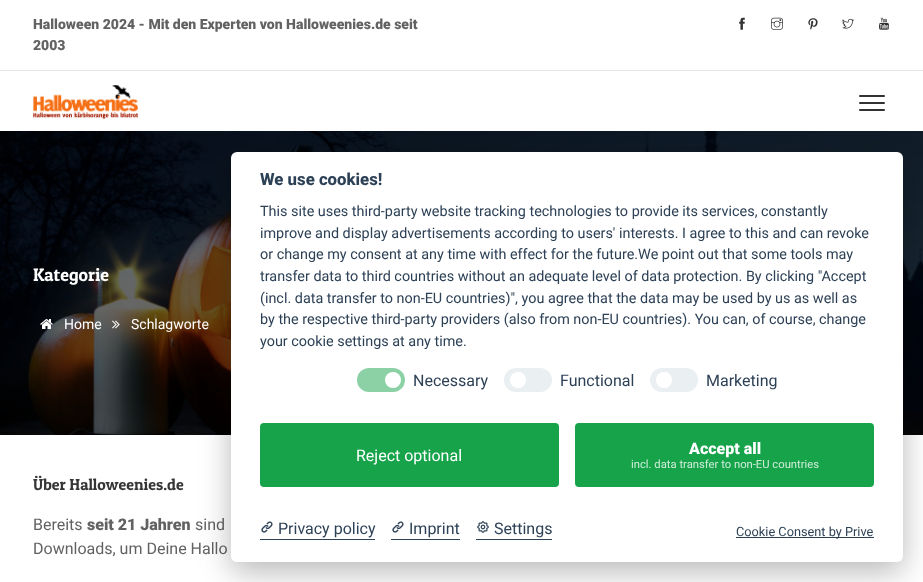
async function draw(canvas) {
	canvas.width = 923;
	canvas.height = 582;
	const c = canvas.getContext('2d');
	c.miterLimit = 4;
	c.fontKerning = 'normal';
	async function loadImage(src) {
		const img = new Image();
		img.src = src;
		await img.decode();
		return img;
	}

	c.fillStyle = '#fff';
	c.fillRect(0, 0, 923, 582);
	c.fillStyle = '#e6e6e6';
	c.fillRect(0, 70, 923, 1);
	c.font = '900 14px Roboto';
	c.fillStyle = '#626262';
	c.fillText('Halloween 2024 - Mit den Experten von Halloweenies.de seit', 33, 29);
	c.fillText('2003', 33, 50);
	c.drawImage(await loadImage('img1.png'), 739, 17, 6, 13);
	c.drawImage(await loadImage('img2.png'), 771, 17, 12, 13);
	c.drawImage(await loadImage('img3.png'), 808, 18, 10, 12);
	c.drawImage(await loadImage('img4.png'), 842, 18, 12, 11);
	c.drawImage(await loadImage('img5.png'), 879, 17, 10, 13);
	c.drawImage(await loadImage('img6.png'), 33, 85, 105, 34);
	c.fillStyle = '#323232';
	c.beginPath();
	c.roundRect(859, 95, 26, 2, 1);
	c.fill();
	c.beginPath();
	c.roundRect(859, 102, 26, 2, 1);
	c.fill();
	c.beginPath();
	c.roundRect(859, 109, 26, 2, 1);
	c.fill();
	c.drawImage(await loadImage('img7.png'), 0, 131, 923, 304);
	c.font = '18px Patua One';
	c.fillStyle = '#fff';
	c.fillText('Kategorie', 33, 281);
	c.drawImage(await loadImage('img8.png'), 40, 319, 13, 10);
	c.font = '14px Roboto';
	c.fillText('Home', 64, 329);
	c.drawImage(await loadImage('img9.png'), 112, 320, 8, 9);
	c.fillText('Schlagworte', 131, 329);
	c.font = '16px Patua One';
	c.fillStyle = '#363636';
	c.fillText('Über Halloweenies.de', 33, 490);
	c.font = '16px Roboto';
	c.fillStyle = '#626262';
	c.fillText('Bereits', 33, 530);
	c.font = '900 16px Roboto';
	c.fillText('seit 21 Jahren', 87, 530);
	c.font = '16px Roboto';
	c.fillText('sind', 195, 530);
	c.fillText('Downloads, um Deine Hallo', 33, 554);
	c.fillStyle = '#02020347';
	c.filter = 'blur(15px)';
	c.beginPath();
	c.roundRect(231, 162, 672, 410, 6);
	c.fill();
	c.filter = 'none';
	c.fillStyle = '#fff';
	c.beginPath();
	c.roundRect(231, 152, 672, 410, 6);
	c.fill();
	c.font = '800 16.75px Roboto';
	c.fillStyle = '#2d4156';
	c.fillText('We use cookies!', 260, 185);
	c.font = '14.4px Roboto';
	for (const [text, x, y] of [
		['This site uses third-party website tracking technologies to provide its services, constantly', 260, 216],
		['improve and display advertisements according to users\' interests. I agree to this and can revoke', 260, 238],
		['or change my consent at any time with effect for the future.We point out that some tools may', 260, 259],
		['transfer data to third countries without an adequate level of data protection. By clicking "Accept', 260, 281],
		['(incl. data transfer to non-EU countries)", you agree that the data may be used by us as well as', 260, 303],
		['by the respective third-party providers (also from non-EU countries). You can, of course, change', 260, 324],
		['your cookie settings at any time.', 260, 346],
	]) {
		c.fillText(text, x, y);
	}
	c.fillStyle = '#8bd1a5';
	c.beginPath();
	c.roundRect(357, 368, 48, 24, 12);
	c.fill();
	c.fillStyle = '#fff';
	c.beginPath();
	c.arc(393, 380, 8, 0, 2 * Math.PI);
	c.fill();
	c.font = '16px Roboto';
	c.fillStyle = '#2d4156';
	c.fillText('Necessary', 413, 386);
	c.fillStyle = '#eaeff2';
	c.beginPath();
	c.roundRect(504, 368, 48, 24, 12);
	c.fill();
	c.fillStyle = '#fff';
	c.beginPath();
	c.arc(518, 380, 8, 0, 2 * Math.PI);
	c.fill();
	c.fillStyle = '#2d4156';
	c.fillText('Functional', 560, 386);
	c.fillStyle = '#eaeff2';
	c.beginPath();
	c.roundRect(650, 368, 48, 24, 12);
	c.fill();
	c.fillStyle = '#fff';
	c.beginPath();
	c.arc(664, 380, 8, 0, 2 * Math.PI);
	c.fill();
	c.fillStyle = '#2d4156';
	c.fillText('Marketing', 706, 386);
	c.fillStyle = '#16a34a';
	c.beginPath();
	c.roundRect(260, 423, 299, 64, 4);
	c.fill();
	c.fillStyle = '#fff';
	c.fillText('Reject optional', 356, 461);
	c.fillStyle = '#16a34a';
	c.beginPath();
	c.roundRect(575, 423, 299, 64, 4);
	c.fill();
	c.font = '900 16px Roboto';
	c.fillStyle = '#fff';
	c.fillText('Accept all', 689, 454);
	c.font = '11.25px Roboto';
	c.fillStyle = '#d0eddb';
	c.fillText('incl. data transfer to non-EU countries', 631, 468);
	c.fillStyle = '#2d4156';
	c.fillRect(260, 539, 115, 1);
	c.drawImage(await loadImage('img10.png'), 261, 521, 12, 12);
	c.font = '16px Roboto';
	c.fillText('Privacy policy', 278, 534);
	c.fillRect(391, 539, 69, 1);
	c.drawImage(await loadImage('img10.png'), 392, 521, 12, 12);
	c.fillText('Imprint', 409, 534);
	c.fillRect(476, 539, 76, 1);
	c.drawImage(await loadImage('img11.png'), 477, 521, 12, 12);
	c.fillText('Settings', 494, 534);
	c.fillRect(736, 537, 138, 1);
	c.font = '12.75px Roboto';
	c.fillText('Cookie Consent by Prive', 736, 536);
}

draw(document.querySelector('canvas'));
